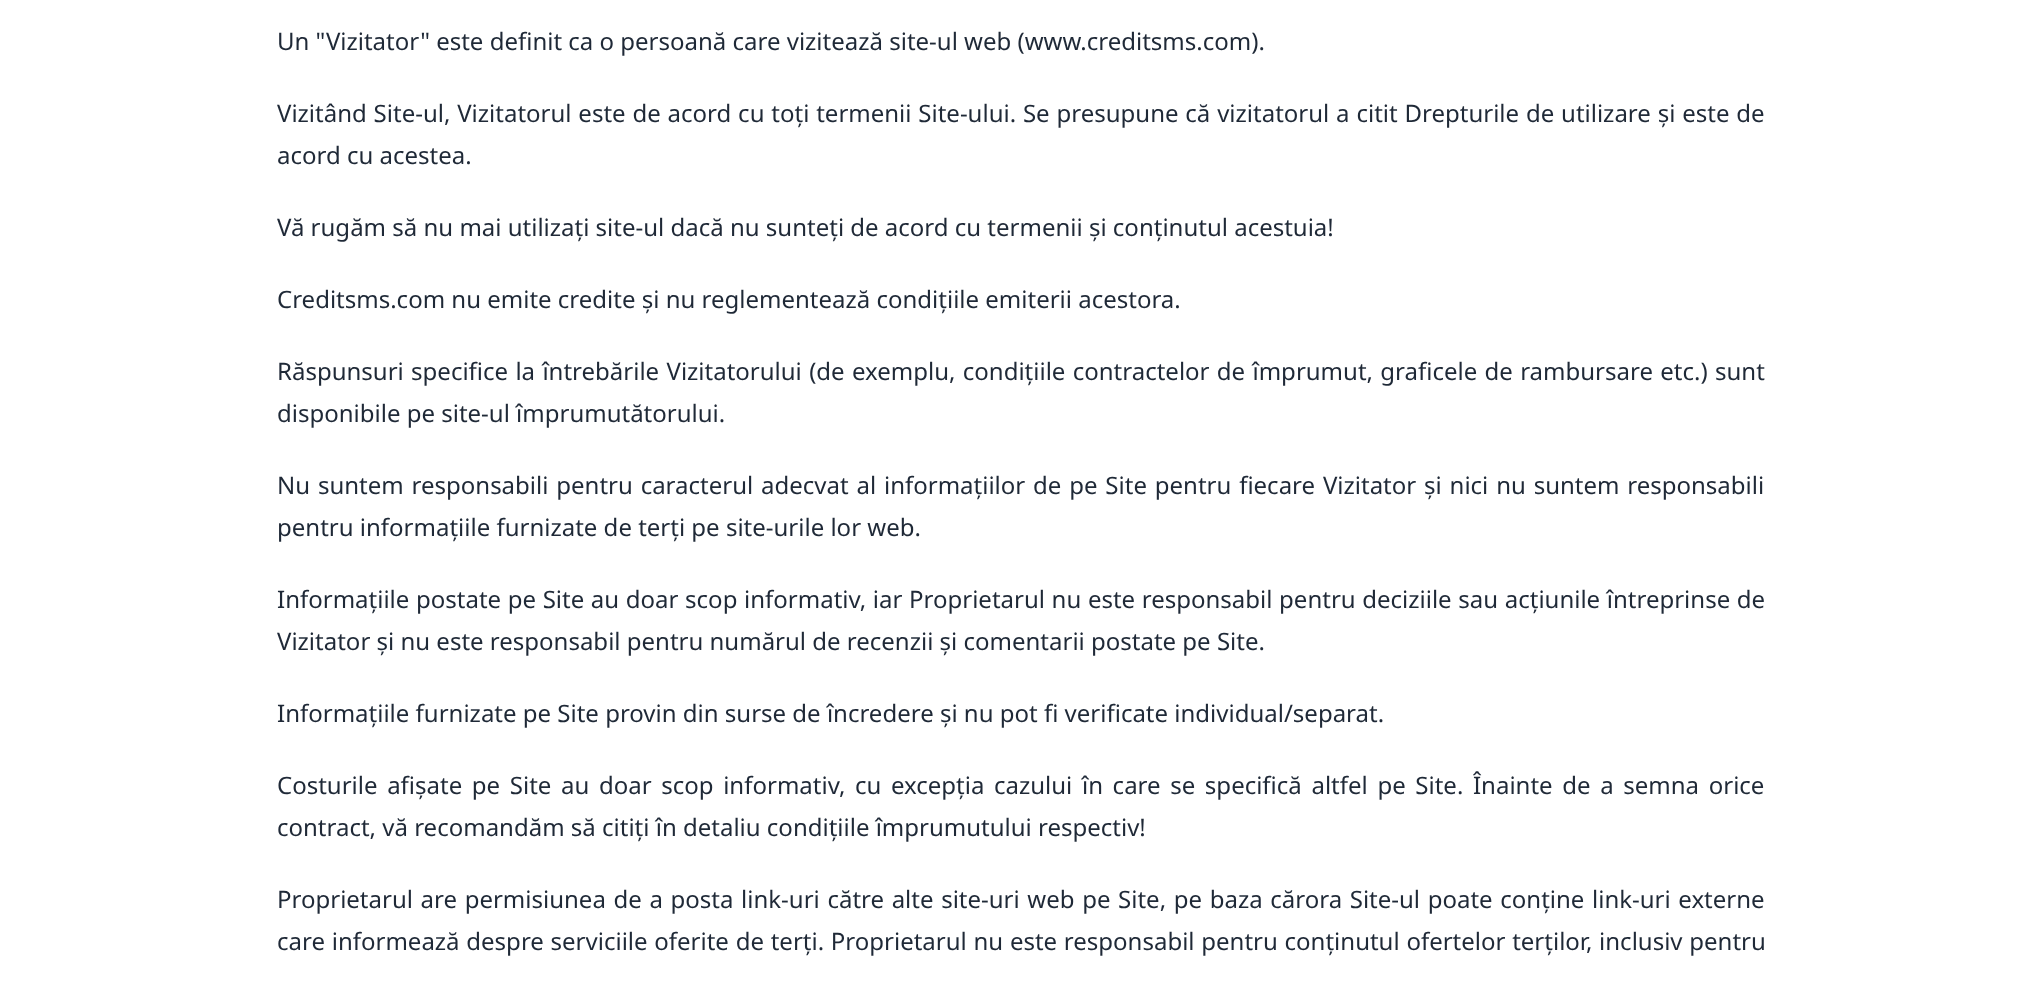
async function draw(canvas) {
	canvas.width = 2041;
	canvas.height = 985;
	const c = canvas.getContext('2d');
	c.miterLimit = 4;
	c.fontKerning = 'normal';

	c.fillStyle = '#fff';
	c.fillRect(0, 0, 2041, 985);
	c.font = '24px Noto Sans';
	c.fillStyle = '#1f2937';
	c.fillText('Un "Vizitator" este definit ca o persoană care vizitează site-ul web (www.creditsms.com).', 277, 50);
	c.wordSpacing = '0.6px';
	c.fillText('Vizitând Site-ul, Vizitatorul este de acord cu toți termenii Site-ului. Se presupune că vizitatorul a citit Drepturile de utilizare și este de', 277, 122);
	c.wordSpacing = '0px';
	for (const [text, x, y] of [
		['acord cu acestea.', 277, 164],
		['Vă rugăm să nu mai utilizați site-ul dacă nu sunteți de acord cu termenii și conținutul acestuia!', 277, 236],
		['Creditsms.com nu emite credite și nu reglementează condițiile emiterii acestora.', 277, 308],
	]) {
		c.fillText(text, x, y);
	}
	c.wordSpacing = '1.1px';
	c.fillText('Răspunsuri specifice la întrebările Vizitatorului (de exemplu, condițiile contractelor de împrumut, graficele de rambursare etc.) sunt', 277, 380);
	c.wordSpacing = '0px';
	c.fillText('disponibile pe site-ul împrumutătorului.', 277, 422);
	c.wordSpacing = '1.6px';
	c.fillText('Nu suntem responsabili pentru caracterul adecvat al informațiilor de pe Site pentru fiecare Vizitator și nici nu suntem responsabili', 277, 494);
	c.wordSpacing = '0px';
	c.fillText('pentru informațiile furnizate de terți pe site-urile lor web.', 277, 536);
	c.wordSpacing = '0.4px';
	c.fillText('Informațiile postate pe Site au doar scop informativ, iar Proprietarul nu este responsabil pentru deciziile sau acțiunile întreprinse de', 277, 608);
	c.wordSpacing = '0px';
	c.fillText('Vizitator și nu este responsabil pentru numărul de recenzii și comentarii postate pe Site.', 277, 650);
	c.fillText('Informațiile furnizate pe Site provin din surse de încredere și nu pot fi verificate individual/separat.', 277, 722);
	c.wordSpacing = '3.4px';
	c.fillText('Costurile afișate pe Site au doar scop informativ, cu excepția cazului în care se specifică altfel pe Site. Înainte de a semna orice', 277, 794);
	c.wordSpacing = '0px';
	c.fillText('contract, vă recomandăm să citiți în detaliu condițiile împrumutului respectiv!', 277, 836);
	c.wordSpacing = '1.4px';
	c.fillText('Proprietarul are permisiunea de a posta link-uri către alte site-uri web pe Site, pe baza cărora Site-ul poate conține link-uri externe', 277, 908);
	c.wordSpacing = '0.5px';
	c.fillText('care informează despre serviciile oferite de terți. Proprietarul nu este responsabil pentru conținutul ofertelor terților, inclusiv pentru', 277, 950);
}

draw(document.querySelector('canvas'));
